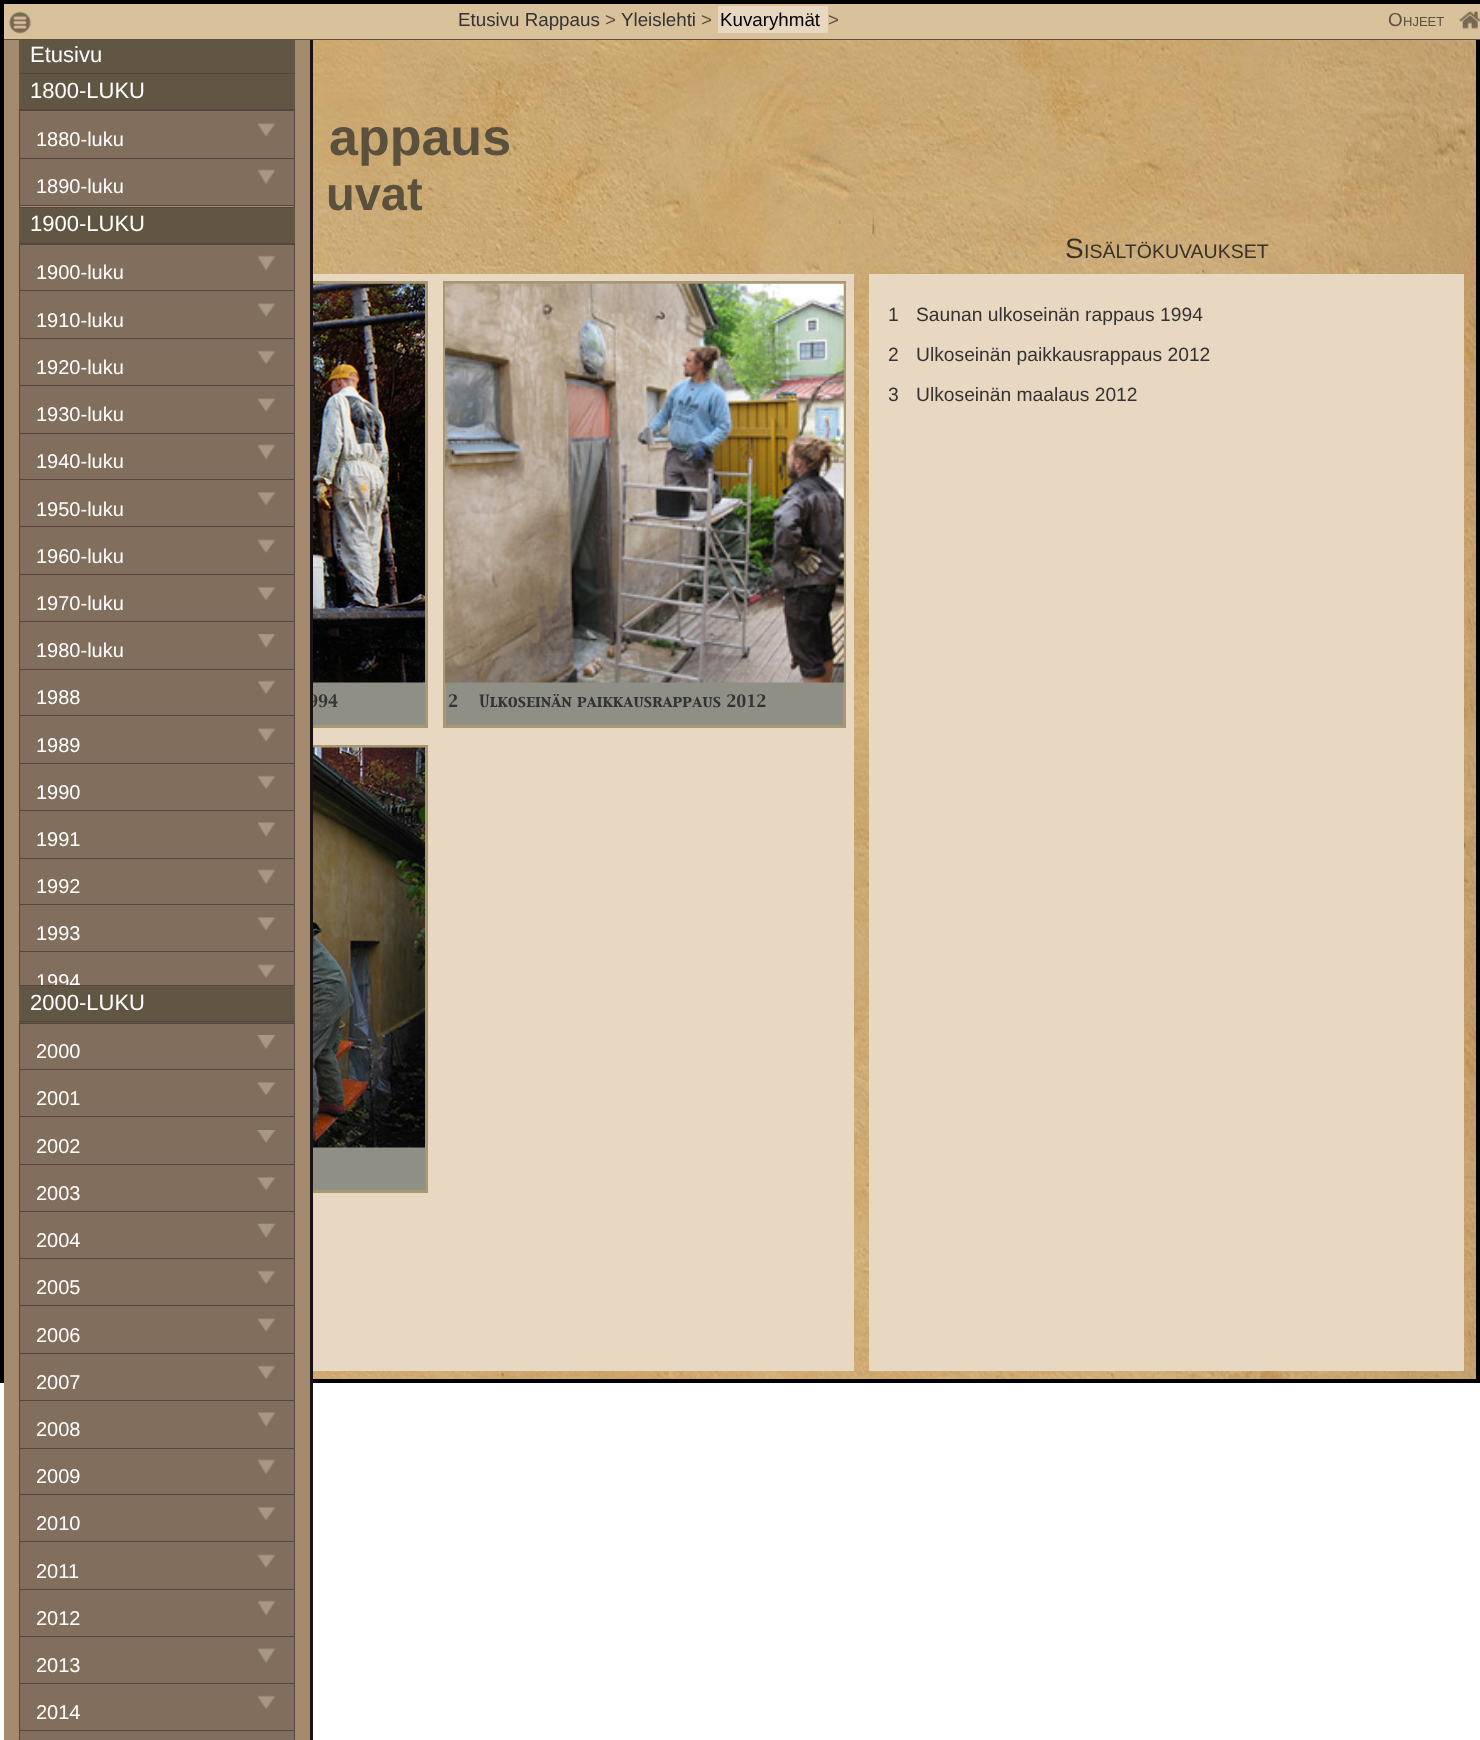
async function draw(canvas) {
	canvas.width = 1480;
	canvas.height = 1740;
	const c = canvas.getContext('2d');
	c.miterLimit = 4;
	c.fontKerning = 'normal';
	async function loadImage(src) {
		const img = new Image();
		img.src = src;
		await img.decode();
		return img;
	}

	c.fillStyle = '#fff';
	c.fillRect(0, 0, 1480, 1740);
	c.drawImage(await loadImage('img1.png'), 313, 40, 1163, 1339);
	c.strokeStyle = '#000';
	c.lineWidth = 4;
	c.strokeRect(2, 2, 1476, 1379);
	c.fillStyle = '#e8d8c1';
	c.fillRect(313, 274, 541, 1097);
	c.fillStyle = '#8f8f85';
	c.fillRect(313, 682, 112, 43);
	c.strokeStyle = '#a69873';
	c.lineWidth = 3;
	c.strokeRect(25.5, 282.5, 401, 444);
	c.font = '15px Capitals';
	c.fillStyle = '#333';
	c.fillText('994', 308, 707);
	c.fillStyle = '#8f8f85';
	c.fillRect(313, 1147, 112, 43);
	c.strokeRect(25.5, 746.5, 401, 445);
	for (const [x, y, w, h, color] of [
		[310, 38, 3, 1702, '#191316'],
		[4, 4, 1476, 35, '#d9c19b'],
		[4, 39, 1476, 1, '#59503d'],
	]) {
		c.fillStyle = color;
		c.fillRect(x, y, w, h);
	}
	c.drawImage(await loadImage('img2.png'), 9, 11, 23, 23);
	c.font = '18.75px Liberation Sans';
	c.fillStyle = '#333';
	c.fillText('Etusivu Rappaus', 458, 26);
	c.fillStyle = '#59503d';
	c.fillText('>', 605, 26);
	c.fillStyle = '#333';
	c.fillText('Yleislehti', 621, 26);
	c.fillStyle = '#59503d';
	c.fillText('>', 701, 26);
	c.fillStyle = '#e8d8c1';
	c.fillRect(718, 6, 110, 27);
	c.fillStyle = '#000';
	c.fillText('Kuvaryhmät', 720, 26);
	c.fillStyle = '#59503d';
	c.fillText('>', 828, 26);
	c.fillText('O', 1388, 26);
	c.font = '13px Liberation Sans';
	c.fillText('HJEET', 1403, 26);
	c.drawImage(await loadImage('img3.png'), 1459, 11, 21, 18);
	for (const [x, y, w, h, color] of [
		[4, 40, 306, 1700, '#a48b70'],
		[19, 40, 276, 33, '#615643'],
		[19, 73, 276, 1, '#55473e'],
	]) {
		c.fillStyle = color;
		c.fillRect(x, y, w, h);
	}
	c.font = '22px Liberation Sans';
	c.fillStyle = '#fff';
	c.fillText('Etusivu', 30, 62);
	c.fillStyle = '#615643';
	c.fillRect(19, 74, 276, 35);
	c.fillStyle = '#55473e';
	c.fillRect(19, 109, 276, 1);
	c.fillStyle = '#fff';
	c.fillText('1800-LUKU', 30, 98);
	c.strokeStyle = '#55473e';
	c.lineWidth = 1;
	c.strokeRect(19.5, 110.5, 275, 97);
	c.fillStyle = '#826e5d';
	c.fillRect(20, 111, 274, 47);
	c.fillStyle = '#55473e';
	c.fillRect(20, 158, 274, 1);
	c.font = '20px Liberation Sans';
	c.fillStyle = '#fff';
	c.fillText('1880-luku', 36, 146);
	c.drawImage(await loadImage('img4.png'), 258, 123, 18, 14);
	c.fillStyle = '#826e5d';
	c.fillRect(20, 159, 274, 46);
	c.fillStyle = '#55473e';
	c.fillRect(20, 205, 274, 1);
	c.drawImage(await loadImage('img5.png'), 258, 169, 17, 15);
	c.fillStyle = '#fff';
	c.fillText('1890-luku', 36, 193);
	c.fillStyle = '#615643';
	c.fillRect(19, 208, 276, 35);
	c.fillStyle = '#55473e';
	c.fillRect(19, 243, 276, 1);
	c.font = '22px Liberation Sans';
	c.fillStyle = '#fff';
	c.fillText('1900-LUKU', 30, 231);
	c.strokeRect(19.5, 244.5, 275, 741);
	c.fillStyle = '#826e5d';
	c.fillRect(20, 245, 274, 45);
	c.fillStyle = '#55473e';
	c.fillRect(20, 290, 274, 1);
	c.font = '20px Liberation Sans';
	c.fillStyle = '#fff';
	c.fillText('1900-luku', 36, 279);
	c.drawImage(await loadImage('img6.png'), 258, 255, 18, 16);
	c.fillStyle = '#826e5d';
	c.fillRect(20, 291, 274, 47);
	c.fillStyle = '#55473e';
	c.fillRect(20, 338, 274, 1);
	c.drawImage(await loadImage('img7.png'), 258, 303, 17, 14);
	c.fillStyle = '#fff';
	c.fillText('1910-luku', 36, 327);
	c.fillStyle = '#826e5d';
	c.fillRect(20, 339, 274, 46);
	c.fillStyle = '#55473e';
	c.fillRect(20, 385, 274, 1);
	c.drawImage(await loadImage('img8.png'), 258, 350, 17, 14);
	c.fillStyle = '#fff';
	c.fillText('1920-luku', 36, 374);
	c.fillStyle = '#826e5d';
	c.fillRect(20, 386, 274, 47);
	c.fillStyle = '#55473e';
	c.fillRect(20, 433, 274, 1);
	c.fillStyle = '#fff';
	c.fillText('1930-luku', 36, 421);
	c.drawImage(await loadImage('img7.png'), 258, 398, 17, 14);
	c.fillStyle = '#826e5d';
	c.fillRect(20, 434, 274, 45);
	c.fillStyle = '#55473e';
	c.fillRect(20, 479, 274, 1);
	c.drawImage(await loadImage('img5.png'), 258, 444, 17, 15);
	c.fillStyle = '#fff';
	c.fillText('1940-luku', 36, 468);
	c.fillStyle = '#826e5d';
	c.fillRect(20, 480, 274, 94);
	c.fillStyle = '#55473e';
	c.fillRect(20, 526, 274, 1);
	c.drawImage(await loadImage('img9.png'), 258, 492, 18, 14);
	c.fillStyle = '#fff';
	c.fillText('1950-luku', 36, 516);
	c.fillStyle = '#55473e';
	c.fillRect(20, 574, 274, 1);
	c.drawImage(await loadImage('img10.png'), 258, 539, 18, 14);
	c.fillStyle = '#fff';
	c.fillText('1960-luku', 36, 563);
	c.fillStyle = '#826e5d';
	c.fillRect(20, 575, 274, 94);
	c.fillStyle = '#55473e';
	c.fillRect(20, 621, 274, 1);
	c.fillStyle = '#fff';
	c.fillText('1970-luku', 36, 610);
	c.drawImage(await loadImage('img9.png'), 258, 587, 18, 14);
	c.fillStyle = '#55473e';
	c.fillRect(20, 669, 274, 1);
	c.fillStyle = '#fff';
	c.fillText('1980-luku', 36, 657);
	c.drawImage(await loadImage('img11.png'), 258, 634, 18, 14);
	c.fillStyle = '#826e5d';
	c.fillRect(20, 670, 274, 45);
	c.fillStyle = '#55473e';
	c.fillRect(20, 715, 274, 1);
	c.drawImage(await loadImage('img12.png'), 258, 680, 17, 14);
	c.fillStyle = '#fff';
	c.fillText('1988', 36, 704);
	c.fillStyle = '#826e5d';
	c.fillRect(20, 716, 274, 47);
	c.fillStyle = '#55473e';
	c.fillRect(20, 763, 274, 1);
	c.drawImage(await loadImage('img13.png'), 258, 728, 17, 14);
	c.fillStyle = '#fff';
	c.fillText('1989', 36, 752);
	c.fillStyle = '#826e5d';
	c.fillRect(20, 764, 274, 46);
	c.fillStyle = '#55473e';
	c.fillRect(20, 810, 274, 1);
	c.drawImage(await loadImage('img8.png'), 258, 775, 17, 14);
	c.fillStyle = '#fff';
	c.fillText('1990', 36, 799);
	c.fillStyle = '#826e5d';
	c.fillRect(20, 811, 274, 47);
	c.fillStyle = '#55473e';
	c.fillRect(20, 858, 274, 1);
	c.drawImage(await loadImage('img14.png'), 258, 822, 18, 15);
	c.fillStyle = '#fff';
	c.fillText('1991', 36, 846);
	c.fillStyle = '#826e5d';
	c.fillRect(20, 859, 274, 45);
	c.fillStyle = '#55473e';
	c.fillRect(20, 904, 274, 1);
	c.drawImage(await loadImage('img5.png'), 258, 869, 17, 15);
	c.fillStyle = '#fff';
	c.fillText('1992', 36, 893);
	c.fillStyle = '#826e5d';
	c.fillRect(20, 905, 274, 80);
	c.fillStyle = '#55473e';
	c.fillRect(20, 951, 274, 1);
	c.drawImage(await loadImage('img9.png'), 258, 917, 18, 14);
	c.fillStyle = '#fff';
	c.fillText('1993', 36, 940);
	c.drawImage(await loadImage('img15.png'), 258, 964, 18, 14);
	c.save();
	c.beginPath();
	c.rect(20, 245, 274, 740);
	c.clip();
	c.fillText('1994', 36, 988);
	c.restore();
	c.fillStyle = '#615643';
	c.fillRect(19, 986, 276, 37);
	c.fillStyle = '#55473e';
	c.fillRect(19, 1021, 276, 1);
	c.font = '22px Liberation Sans';
	c.fillStyle = '#fff';
	c.fillText('2000-LUKU', 30, 1010);
	c.strokeRect(19.5, 1023.5, 275, 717);
	c.fillStyle = '#826e5d';
	c.fillRect(20, 1024, 274, 45);
	c.fillStyle = '#55473e';
	c.fillRect(20, 1069, 274, 1);
	c.drawImage(await loadImage('img16.png'), 257, 1035, 19, 14);
	c.font = '20px Liberation Sans';
	c.fillStyle = '#fff';
	c.fillText('2000', 36, 1058);
	c.fillStyle = '#826e5d';
	c.fillRect(20, 1070, 274, 94);
	c.fillStyle = '#55473e';
	c.fillRect(20, 1116, 274, 1);
	c.drawImage(await loadImage('img17.png'), 257, 1082, 19, 13);
	c.fillStyle = '#fff';
	c.fillText('2001', 36, 1105);
	c.fillStyle = '#55473e';
	c.fillRect(20, 1164, 274, 1);
	c.drawImage(await loadImage('img18.png'), 257, 1130, 19, 13);
	c.fillStyle = '#fff';
	c.fillText('2002', 36, 1153);
	c.fillStyle = '#826e5d';
	c.fillRect(20, 1165, 274, 93);
	c.fillStyle = '#55473e';
	c.fillRect(20, 1211, 274, 1);
	c.drawImage(await loadImage('img19.png'), 257, 1177, 19, 13);
	c.fillStyle = '#fff';
	c.fillText('2003', 36, 1200);
	c.fillStyle = '#55473e';
	c.fillRect(20, 1258, 274, 1);
	c.drawImage(await loadImage('img20.png'), 257, 1223, 19, 15);
	c.fillStyle = '#fff';
	c.fillText('2004', 36, 1247);
	c.fillStyle = '#826e5d';
	c.fillRect(20, 1259, 274, 46);
	c.fillStyle = '#55473e';
	c.fillRect(20, 1305, 274, 1);
	c.drawImage(await loadImage('img8.png'), 258, 1270, 17, 14);
	c.fillStyle = '#fff';
	c.fillText('2005', 36, 1294);
	c.fillStyle = '#826e5d';
	c.fillRect(20, 1306, 274, 47);
	c.fillStyle = '#55473e';
	c.fillRect(20, 1353, 274, 1);
	c.drawImage(await loadImage('img7.png'), 258, 1318, 17, 14);
	c.fillStyle = '#fff';
	c.fillText('2006', 36, 1342);
	c.fillStyle = '#826e5d';
	c.fillRect(20, 1354, 274, 46);
	c.fillStyle = '#55473e';
	c.fillRect(20, 1400, 274, 1);
	c.drawImage(await loadImage('img8.png'), 258, 1365, 17, 14);
	c.fillStyle = '#fff';
	c.fillText('2007', 36, 1389);
	c.fillStyle = '#826e5d';
	c.fillRect(20, 1401, 274, 47);
	c.fillStyle = '#55473e';
	c.fillRect(20, 1448, 274, 1);
	c.drawImage(await loadImage('img14.png'), 258, 1412, 18, 15);
	c.fillStyle = '#fff';
	c.fillText('2008', 36, 1436);
	c.fillStyle = '#826e5d';
	c.fillRect(20, 1449, 274, 45);
	c.fillStyle = '#55473e';
	c.fillRect(20, 1494, 274, 1);
	c.drawImage(await loadImage('img5.png'), 258, 1459, 17, 15);
	c.fillStyle = '#fff';
	c.fillText('2009', 36, 1483);
	c.fillStyle = '#826e5d';
	c.fillRect(20, 1495, 274, 94);
	c.fillStyle = '#55473e';
	c.fillRect(20, 1541, 274, 1);
	c.drawImage(await loadImage('img9.png'), 258, 1507, 18, 14);
	c.fillStyle = '#fff';
	c.fillText('2010', 36, 1530);
	c.fillStyle = '#55473e';
	c.fillRect(20, 1589, 274, 1);
	c.drawImage(await loadImage('img15.png'), 258, 1554, 18, 14);
	c.fillStyle = '#fff';
	c.fillText('2011', 36, 1578);
	c.fillStyle = '#826e5d';
	c.fillRect(20, 1590, 274, 93);
	c.fillStyle = '#55473e';
	c.fillRect(20, 1636, 274, 1);
	c.drawImage(await loadImage('img6.png'), 258, 1600, 18, 16);
	c.fillStyle = '#fff';
	c.fillText('2012', 36, 1625);
	c.fillStyle = '#55473e';
	c.fillRect(20, 1683, 274, 1);
	c.drawImage(await loadImage('img21.png'), 258, 1648, 18, 15);
	c.fillStyle = '#fff';
	c.fillText('2013', 36, 1672);
	c.fillStyle = '#826e5d';
	c.fillRect(20, 1684, 274, 46);
	c.fillStyle = '#55473e';
	c.fillRect(20, 1730, 274, 1);
	c.drawImage(await loadImage('img8.png'), 258, 1695, 17, 14);
	c.fillStyle = '#fff';
	c.fillText('2014', 36, 1719);
	c.fillStyle = '#826e5d';
	c.fillRect(20, 1731, 274, 9);
	c.font = 'bold 52px Liberation Sans';
	c.fillStyle = '#59503d';
	c.fillText('appaus', 329, 155);
	c.font = 'bold 47px Liberation Sans';
	c.fillText('uvat', 326, 210);
	c.font = '28px Liberation Sans';
	c.fillStyle = '#383226';
	c.fillText('S', 1065, 258);
	c.font = '19.5px Liberation Sans';
	c.fillText('ISÄLTÖKUVAUKSET', 1084, 258);
	c.fillStyle = '#e8d8c1';
	c.fillRect(869, 274, 595, 1097);
	c.font = '19.25px Liberation Sans';
	c.fillStyle = '#333';
	for (const [text, x, y] of [
		['1', 888, 321],
		['Saunan ulkoseinän rappaus 1994', 916, 321],
		['2', 888, 361],
		['Ulkoseinän paikkausrappaus 2012', 916, 361],
		['3', 888, 401],
		['Ulkoseinän maalaus 2012', 916, 401],
	]) {
		c.fillText(text, x, y);
	}
	c.drawImage(await loadImage('img22.png'), 313, 283, 112, 400);
	c.fillStyle = '#8f8f85';
	c.fillRect(446, 682, 397, 43);
	c.strokeStyle = '#a69873';
	c.lineWidth = 3;
	c.strokeRect(444.5, 282.5, 400, 444);
	c.drawImage(await loadImage('img23.png'), 445, 283, 399, 400);
	c.font = '15px Capitals';
	c.fillStyle = '#333';
	c.fillText('2', 448, 707);
	c.fillText('Ulkoseinän paikkausrappaus 2012', 479, 707);
	c.drawImage(await loadImage('img24.png'), 313, 747, 112, 401);
}

draw(document.querySelector('canvas'));
